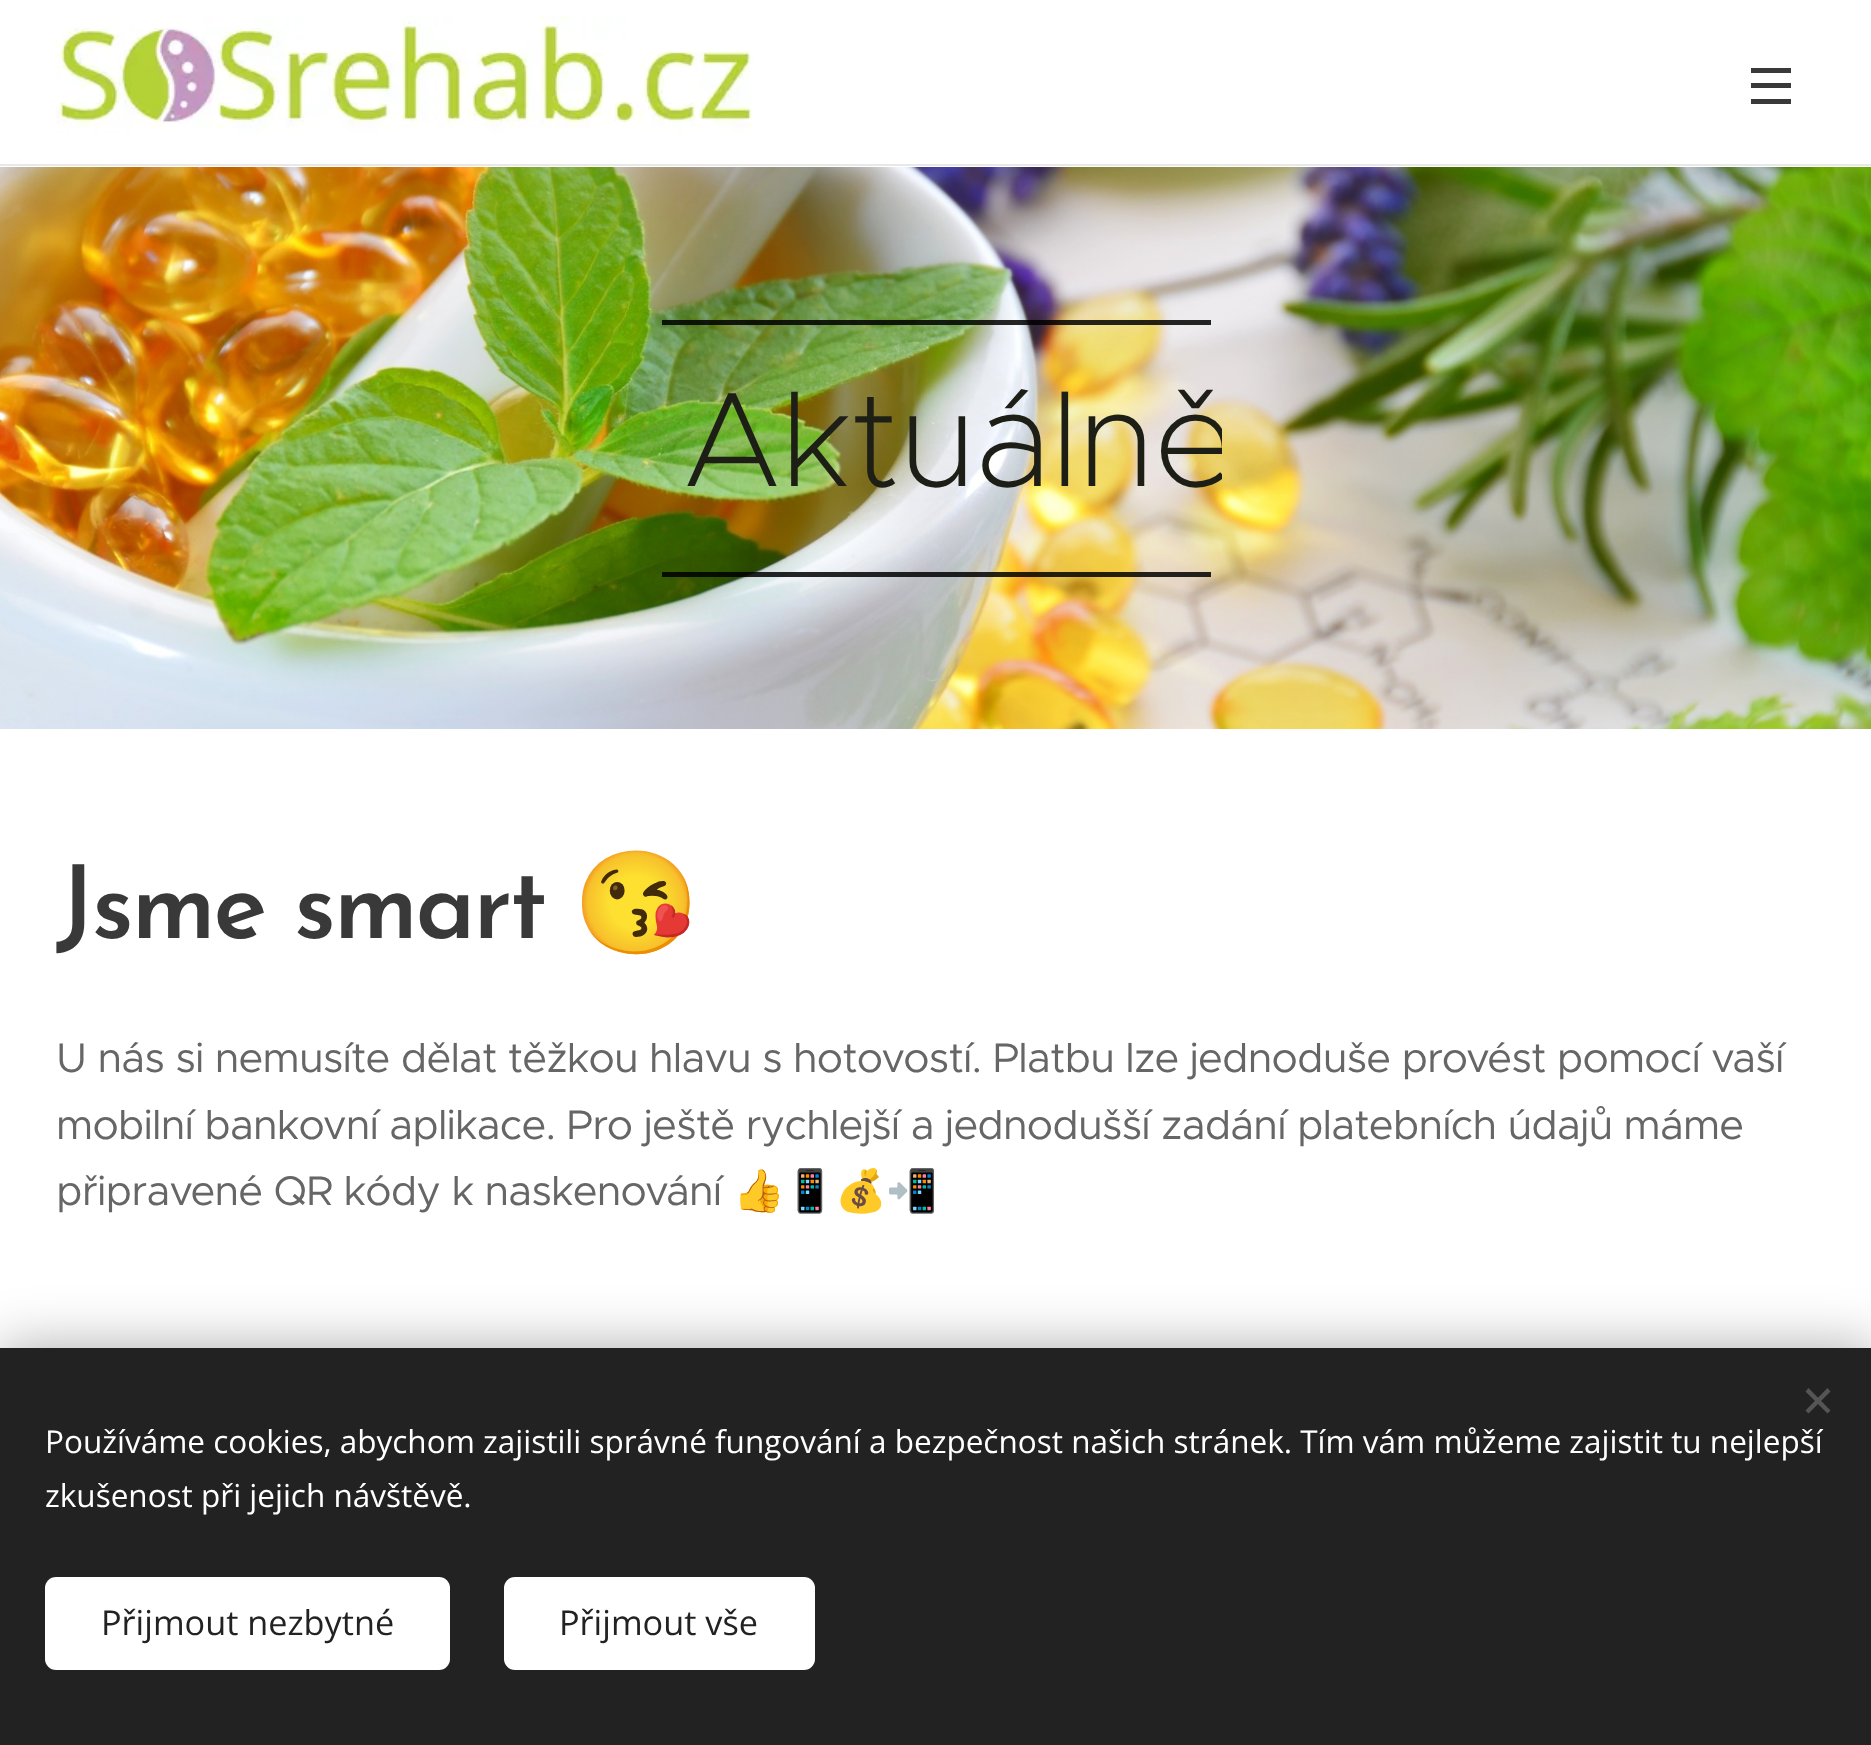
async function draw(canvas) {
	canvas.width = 1871;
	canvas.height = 1745;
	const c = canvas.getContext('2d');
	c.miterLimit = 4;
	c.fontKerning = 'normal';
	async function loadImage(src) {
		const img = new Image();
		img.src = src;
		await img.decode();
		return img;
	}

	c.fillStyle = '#fff';
	c.fillRect(0, 0, 1871, 1745);
	c.drawImage(await loadImage('img1.png'), 56, 15, 697, 118);
	for (const [x, y, w, h, color] of [
		[1751, 83, 40, 5, '#393939'],
		[1751, 68, 40, 5, '#393939'],
		[1751, 99, 40, 5, '#393939'],
		[0, 164, 1871, 2, '#e8e8e8'],
	]) {
		c.fillStyle = color;
		c.fillRect(x, y, w, h);
	}
	c.drawImage(await loadImage('img2.png'), 0, 167, 1871, 562);
	c.fillStyle = '#000000d9';
	c.fillRect(662, 320, 549, 5);
	c.fillRect(662, 572, 549, 5);
	c.save();
	c.beginPath();
	c.rect(650, 308, 572, 279);
	c.clip();
	c.font = '200 135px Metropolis';
	c.fillStyle = '#1d1e15';
	c.fillText('Aktuálně', 683, 486);
	c.restore();
	c.letterSpacing = '-3px';
	c.font = '600 101.25px Josefin Sans';
	c.fillStyle = '#393939';
	c.fillText('Jsme smart', 56, 938);
	c.font = '101.25px Noto Color Emoji';
	c.fillText('😘', 573, 938);
	c.letterSpacing = '-0.83px';
	c.font = '41.6px Metropolis';
	c.fillStyle = '#666';
	for (const [text, x, y] of [
		['U nás si nemusíte dělat těžkou hlavu s hotovostí. Platbu lze jednoduše provést pomocí vaší', 56, 1072],
		['mobilní bankovní aplikace. Pro ještě rychlejší a jednodušší zadání platebních údajů máme', 56, 1139],
		['připravené QR kódy k naskenování', 56, 1205],
	]) {
		c.fillText(text, x, y);
	}
	c.font = '41.6px Noto Color Emoji';
	c.fillText('👍📱💰📲', 733, 1205);
	c.fillStyle = '#00000054';
	c.filter = 'blur(28px)';
	c.beginPath();
	c.rect(0, 1348, 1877, 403);
	c.fill();
	c.filter = 'none';
	c.fillStyle = '#222';
	c.fillRect(0, 1348, 1871, 397);
	c.fillStyle = '#555';
	c.beginPath();
	c.moveTo(1805.5, 1410.5);
	c.lineTo(1827.5, 1388);
	c.lineTo(1830.5, 1391.5);
	c.lineTo(1808.5, 1413.5);
	c.closePath();
	c.fill();
	c.beginPath();
	c.moveTo(1808.5, 1388);
	c.lineTo(1830.5, 1410.5);
	c.lineTo(1827.5, 1413.5);
	c.lineTo(1805.5, 1391.5);
	c.closePath();
	c.fill();
	c.letterSpacing = '0px';
	c.font = '31.5px Open Sans';
	c.fillStyle = '#fff';
	c.fillText('Používáme cookies, abychom zajistili správné fungování a bezpečnost našich stránek. Tím vám můžeme zajistit tu nejlepší', 45, 1453);
	c.fillText('zkušenost při jejich návštěvě.', 45, 1507);
	c.beginPath();
	c.roundRect(45, 1577, 405, 93, 11);
	c.fill();
	c.font = '34.25px Open Sans';
	c.fillStyle = '#222';
	c.fillText('Přijmout nezbytné', 101, 1635);
	c.fillStyle = '#fff';
	c.beginPath();
	c.roundRect(504, 1577, 311, 93, 11);
	c.fill();
	c.fillStyle = '#222';
	c.fillText('Přijmout vše', 559, 1635);
}

draw(document.querySelector('canvas'));
